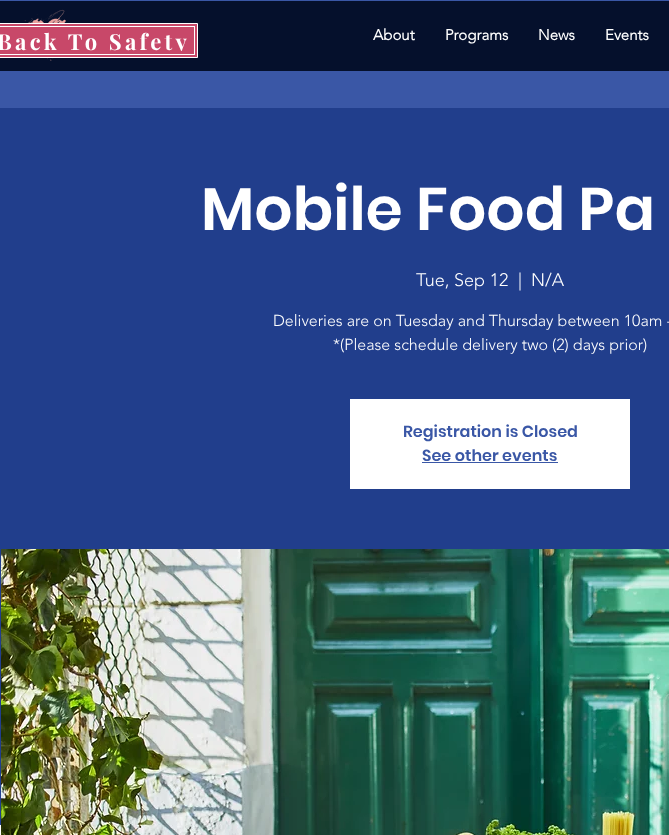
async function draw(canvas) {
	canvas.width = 669;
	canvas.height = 835;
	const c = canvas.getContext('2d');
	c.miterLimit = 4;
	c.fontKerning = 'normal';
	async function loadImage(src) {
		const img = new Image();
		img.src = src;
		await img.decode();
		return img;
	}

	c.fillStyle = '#3a57a6';
	c.fillRect(0, 0, 669, 835);
	c.fillStyle = '#05102c';
	c.fillRect(0, 1, 669, 70);
	c.drawImage(await loadImage('img1.png'), 24, 9, 42, 52);
	c.fillStyle = '#c84869';
	c.beginPath();
	c.rect(-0.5, 23.5, 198, 34);
	c.fill();
	c.strokeStyle = '#fff';
	c.stroke();
	c.strokeRect(-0.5, 26.5, 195, 28);
	c.save();
	c.beginPath();
	c.rect(0, 30, 191, 21);
	c.clip();
	c.letterSpacing = '3.25px';
	c.font = 'bold 22px Playfair Display';
	c.fillStyle = '#fff';
	c.fillText('Back To Safety', -3, 50);
	c.restore();
	c.font = 'bold 15px "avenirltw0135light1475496"';
	c.fillStyle = '#fff';
	for (const [text, x, y] of [
		['About', 373, 40],
		['Programs', 445, 40],
		['News', 538, 40],
		['Events', 605, 40],
	]) {
		c.fillText(text, x, y);
	}
	c.fillStyle = '#213e8c';
	c.fillRect(0, 108, 669, 717);
	c.font = '600 60px Poppins';
	c.fillStyle = '#fff';
	c.fillText('Mobile Food Pa', 201, 230);
	c.font = '300 18px "avenirltw0135light1475496"';
	for (const [text, x, y] of [
		['Tue, Sep 12', 416, 286],
		['|', 518, 286],
		['N/A', 531, 286],
	]) {
		c.fillText(text, x, y);
	}
	c.font = '300 16px "avenirltw0135light1475496"';
	c.fillText('Deliveries are on Tuesday and Thursday between 10am -', 273, 326);
	c.fillText('*(Please schedule delivery two (2) days prior)', 333, 350);
	c.fillRect(350, 399, 280, 90);
	c.font = '600 16px Poppins';
	c.fillStyle = '#3a57a6';
	c.fillText('Registration is Closed', 403, 437);
	c.fillText('See other events', 422, 461);
	c.fillRect(422, 462, 136, 1);
	c.drawImage(await loadImage('img2.png'), 1, 549, 668, 286);
	c.fillStyle = '#fff';
	c.fillRect(0, 825, 1, 10);
}

draw(document.querySelector('canvas'));
